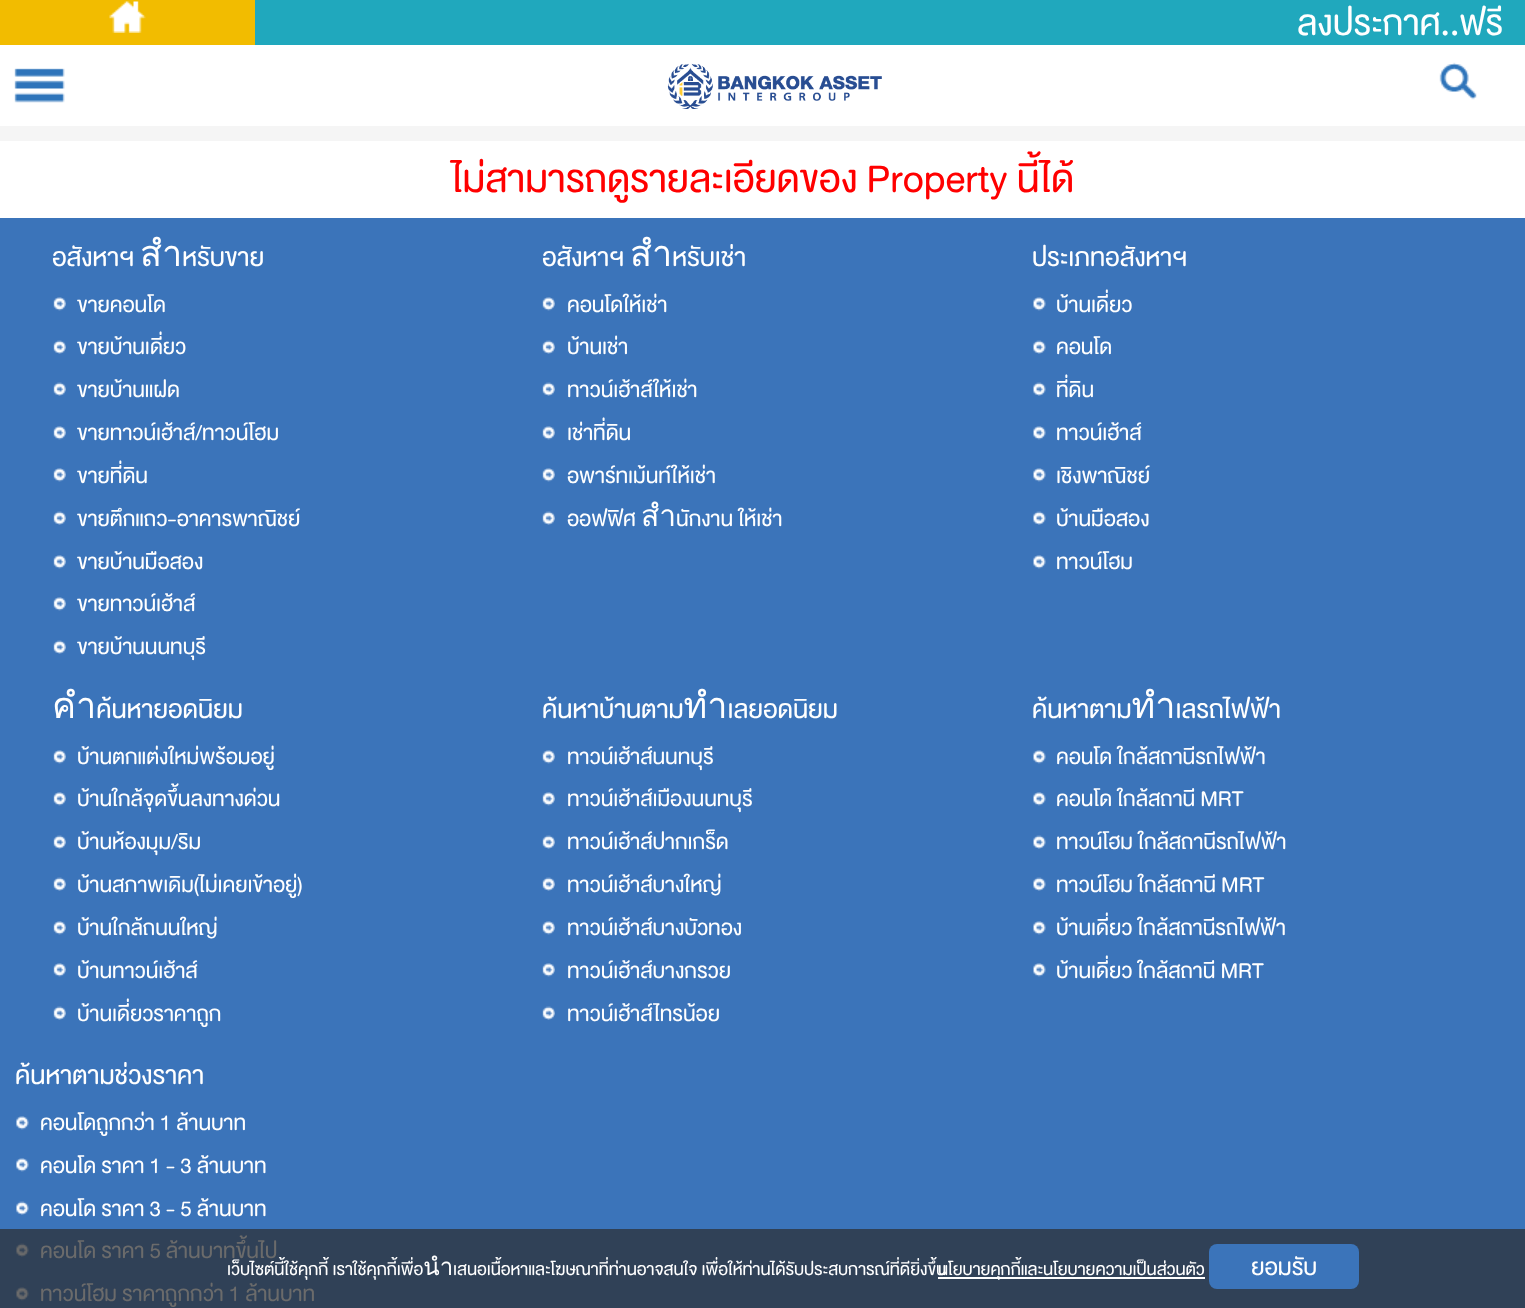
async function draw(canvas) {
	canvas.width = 1525;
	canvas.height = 1308;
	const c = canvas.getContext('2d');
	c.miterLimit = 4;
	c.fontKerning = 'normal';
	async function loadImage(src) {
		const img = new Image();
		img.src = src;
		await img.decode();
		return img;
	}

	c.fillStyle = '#fff';
	c.fillRect(0, 0, 1525, 1308);
	c.fillStyle = '#f2bc00';
	c.fillRect(0, 0, 255, 45);
	c.drawImage(await loadImage('img1.png'), 109, 1, 37, 32);
	c.fillStyle = '#20a8bd';
	c.fillRect(255, 0, 1270, 45);
	c.font = '49.5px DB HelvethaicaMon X';
	c.fillStyle = '#fff';
	c.fillText('ลงประกาศ..ฟรี', 1297, 35);
	c.drawImage(await loadImage('img2.png'), 14, 68, 51, 35);
	c.drawImage(await loadImage('img3.png'), 667, 63, 215, 46);
	c.drawImage(await loadImage('img4.png'), 1439, 62, 38, 38);
	c.fillStyle = '#f5f5f5';
	c.fillRect(0, 126, 1525, 15);
	c.font = '54px DB HelvethaicaMon X';
	c.fillStyle = '#f00';
	c.fillText('ไม่สามารถดูรายละเอียดของ Property นี้ได้', 452, 192);
	c.fillStyle = '#3b74ba';
	c.fillRect(0, 218, 1525, 1011);
	c.fillStyle = '#304157';
	c.fillRect(0, 1229, 1525, 79);
	c.font = '36px DB HelvethaicaMon X';
	c.fillStyle = '#fff';
	c.fillText('อสังหาฯ สำหรับขาย', 52, 266);
	c.drawImage(await loadImage('img5.png'), 53, 297, 13, 14);
	c.font = '30px DB HelvethaicaMon X';
	c.fillText('ขายคอนโด', 77, 312);
	c.drawImage(await loadImage('img6.png'), 53, 340, 13, 14);
	c.fillText('ขายบ้านเดี่ยว', 77, 354);
	c.drawImage(await loadImage('img6.png'), 53, 382, 13, 14);
	c.fillText('ขายบ้านแฝด', 77, 397);
	c.drawImage(await loadImage('img5.png'), 53, 426, 13, 14);
	c.fillText('ขายทาวน์เฮ้าส์/ทาวน์โฮม', 77, 440);
	c.drawImage(await loadImage('img5.png'), 53, 468, 13, 14);
	c.fillText('ขายที่ดิน', 77, 483);
	c.drawImage(await loadImage('img6.png'), 53, 511, 13, 14);
	c.fillText('ขายตึกแถว-อาคารพาณิชย์', 77, 526);
	c.drawImage(await loadImage('img5.png'), 53, 555, 13, 14);
	c.fillText('ขายบ้านมือสอง', 77, 569);
	c.drawImage(await loadImage('img5.png'), 53, 597, 13, 14);
	c.fillText('ขายทาวน์เฮ้าส์', 77, 611);
	c.drawImage(await loadImage('img6.png'), 53, 640, 13, 14);
	c.fillText('ขายบ้านนนทบุรี', 77, 654);
	c.font = '36px DB HelvethaicaMon X';
	c.fillText('อสังหาฯ สำหรับเช่า', 542, 266);
	c.drawImage(await loadImage('img7.png'), 542, 297, 13, 14);
	c.font = '30px DB HelvethaicaMon X';
	c.fillText('คอนโดให้เช่า', 567, 312);
	c.drawImage(await loadImage('img8.png'), 542, 340, 13, 14);
	c.fillText('บ้านเช่า', 567, 354);
	c.drawImage(await loadImage('img8.png'), 542, 382, 13, 14);
	c.fillText('ทาวน์เฮ้าส์ให้เช่า', 567, 397);
	c.drawImage(await loadImage('img7.png'), 542, 426, 13, 14);
	c.fillText('เช่าที่ดิน', 567, 440);
	c.drawImage(await loadImage('img7.png'), 542, 468, 13, 14);
	c.fillText('อพาร์ทเม้นท์ให้เช่า', 567, 483);
	c.drawImage(await loadImage('img8.png'), 542, 511, 13, 14);
	c.fillText('ออฟฟิศ สำนักงาน ให้เช่า', 567, 526);
	c.font = '36px DB HelvethaicaMon X';
	c.fillText('ประเภทอสังหาฯ', 1032, 266);
	c.drawImage(await loadImage('img9.png'), 1033, 297, 13, 14);
	c.font = '30px DB HelvethaicaMon X';
	c.fillText('บ้านเดี่ยว', 1056, 312);
	c.drawImage(await loadImage('img10.png'), 1033, 340, 13, 14);
	c.fillText('คอนโด', 1056, 354);
	c.drawImage(await loadImage('img10.png'), 1033, 382, 13, 14);
	c.fillText('ที่ดิน', 1056, 397);
	c.drawImage(await loadImage('img9.png'), 1033, 426, 13, 14);
	c.fillText('ทาวน์เฮ้าส์', 1056, 440);
	c.drawImage(await loadImage('img9.png'), 1033, 468, 13, 14);
	c.fillText('เชิงพาณิชย์', 1056, 483);
	c.drawImage(await loadImage('img10.png'), 1033, 511, 13, 14);
	c.fillText('บ้านมือสอง', 1056, 526);
	c.drawImage(await loadImage('img9.png'), 1033, 555, 13, 14);
	c.fillText('ทาวน์โฮม', 1056, 569);
	c.font = '36px DB HelvethaicaMon X';
	c.fillText('คำค้นหายอดนิยม', 52, 718);
	c.drawImage(await loadImage('img5.png'), 53, 750, 13, 14);
	c.font = '30px DB HelvethaicaMon X';
	c.fillText('บ้านตกแต่งใหม่พร้อมอยู่', 77, 764);
	c.drawImage(await loadImage('img5.png'), 53, 792, 13, 14);
	c.fillText('บ้านใกล้จุดขึ้นลงทางด่วน', 77, 806);
	c.drawImage(await loadImage('img6.png'), 53, 835, 13, 14);
	c.fillText('บ้านห้องมุม/ริม', 77, 849);
	c.drawImage(await loadImage('img6.png'), 53, 877, 13, 14);
	c.fillText('บ้านสภาพเดิม(ไม่เคยเข้าอยู่)', 77, 892);
	c.drawImage(await loadImage('img5.png'), 53, 921, 13, 14);
	c.fillText('บ้านใกล้ถนนใหญ่', 77, 935);
	c.drawImage(await loadImage('img5.png'), 53, 963, 13, 14);
	c.fillText('บ้านทาวน์เฮ้าส์', 77, 978);
	c.drawImage(await loadImage('img6.png'), 53, 1006, 13, 14);
	c.fillText('บ้านเดี่ยวราคาถูก', 77, 1021);
	c.font = '36px DB HelvethaicaMon X';
	c.fillText('ค้นหาบ้านตามทำเลยอดนิยม', 542, 718);
	c.drawImage(await loadImage('img7.png'), 542, 750, 13, 14);
	c.font = '30px DB HelvethaicaMon X';
	c.fillText('ทาวน์เฮ้าส์นนทบุรี', 567, 764);
	c.drawImage(await loadImage('img7.png'), 542, 792, 13, 14);
	c.fillText('ทาวน์เฮ้าส์เมืองนนทบุรี', 567, 806);
	c.drawImage(await loadImage('img8.png'), 542, 835, 13, 14);
	c.fillText('ทาวน์เฮ้าส์ปากเกร็ด', 567, 849);
	c.drawImage(await loadImage('img8.png'), 542, 877, 13, 14);
	c.fillText('ทาวน์เฮ้าส์บางใหญ่', 567, 892);
	c.drawImage(await loadImage('img7.png'), 542, 921, 13, 14);
	c.fillText('ทาวน์เฮ้าส์บางบัวทอง', 567, 935);
	c.drawImage(await loadImage('img7.png'), 542, 963, 13, 14);
	c.fillText('ทาวน์เฮ้าส์บางกรวย', 567, 978);
	c.drawImage(await loadImage('img8.png'), 542, 1006, 13, 14);
	c.fillText('ทาวน์เฮ้าส์ไทรน้อย', 567, 1021);
	c.font = '36px DB HelvethaicaMon X';
	c.fillText('ค้นหาตามทำเลรถไฟฟ้า', 1032, 718);
	c.drawImage(await loadImage('img9.png'), 1033, 750, 13, 14);
	c.font = '30px DB HelvethaicaMon X';
	c.fillText('คอนโด ใกล้สถานีรถไฟฟ้า', 1056, 764);
	c.drawImage(await loadImage('img9.png'), 1033, 792, 13, 14);
	c.fillText('คอนโด ใกล้สถานี MRT', 1056, 806);
	c.drawImage(await loadImage('img10.png'), 1033, 835, 13, 14);
	c.fillText('ทาวน์โฮม ใกล้สถานีรถไฟฟ้า', 1056, 849);
	c.drawImage(await loadImage('img10.png'), 1033, 877, 13, 14);
	c.fillText('ทาวน์โฮม ใกล้สถานี MRT', 1056, 892);
	c.drawImage(await loadImage('img9.png'), 1033, 921, 13, 14);
	c.fillText('บ้านเดี่ยว ใกล้สถานีรถไฟฟ้า', 1056, 935);
	c.drawImage(await loadImage('img9.png'), 1033, 963, 13, 14);
	c.fillText('บ้านเดี่ยว ใกล้สถานี MRT', 1056, 978);
	c.font = '36px DB HelvethaicaMon X';
	c.fillText('ค้นหาตามช่วงราคา', 15, 1084);
	c.drawImage(await loadImage('img11.png'), 16, 1116, 13, 14);
	c.font = '30px DB HelvethaicaMon X';
	c.fillText('คอนโดถูกกว่า 1 ล้านบาท', 40, 1130);
	c.drawImage(await loadImage('img11.png'), 16, 1158, 13, 14);
	c.fillText('คอนโด ราคา 1 - 3 ล้านบาท', 40, 1173);
	c.drawImage(await loadImage('img12.png'), 16, 1201, 13, 14);
	c.fillText('คอนโด ราคา 3 - 5 ล้านบาท', 40, 1216);
	c.drawImage(await loadImage('img13.png'), 16, 1243, 13, 14);
	c.fillStyle = '#6b6b6b';
	c.fillText('คอนโด ราคา 5 ล้านบาทขึ้นไป', 40, 1258);
	c.drawImage(await loadImage('img14.png'), 16, 1287, 13, 14);
	c.fillText('ทาวน์โฮม ราคาถูกกว่า 1 ล้านบาท', 40, 1301);
	c.font = '24px DB HelvethaicaMon X';
	c.fillStyle = '#fff';
	c.fillText('เว็บไซต์นี้ใช้คุกกี้ เราใช้คุกกี้เพื่อนำเสนอเนื้อหาและโฆษณาที่ท่านอาจสนใจ เพื่อให้ท่านได้รับประสบการณ์ที่ดียิ่งขึ้น', 227, 1275);
	c.fillRect(938, 1277, 267, 2);
	c.fillText('นโยบายคุกกี้และนโยบายความเป็นส่วนตัว', 938, 1275);
	c.fillStyle = '#3b74ba';
	c.beginPath();
	c.roundRect(1209, 1244, 150, 45, 8);
	c.fill();
	c.font = '33px DB HelvethaicaMon X';
	c.fillStyle = '#fff';
	c.fillText('ยอมรับ', 1251, 1275);
}

draw(document.querySelector('canvas'));
